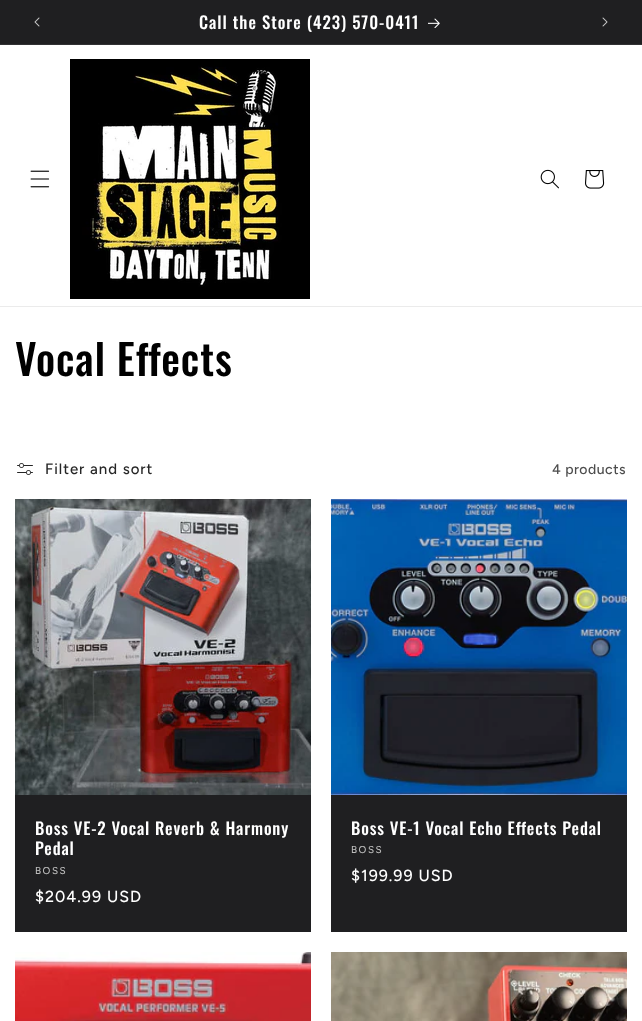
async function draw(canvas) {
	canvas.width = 642;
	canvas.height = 1021;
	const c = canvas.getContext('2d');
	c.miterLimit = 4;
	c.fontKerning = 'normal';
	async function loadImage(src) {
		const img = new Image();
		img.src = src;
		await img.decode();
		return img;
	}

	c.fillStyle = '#fff';
	c.fillRect(0, 0, 642, 1021);
	c.fillStyle = '#1f1f21';
	c.fillRect(0, 0, 642, 44);
	c.fillStyle = '#313133';
	c.fillRect(0, 44, 642, 1);
	c.drawImage(await loadImage('img1.png'), 34, 17, 6, 10);
	c.letterSpacing = '1px';
	c.font = '500 16.75px Oswald';
	c.fillStyle = '#fff';
	c.fillText('Call the Store (423) 570-0411', 199, 29);
	c.drawImage(await loadImage('img2.png'), 428, 18, 12, 10);
	c.drawImage(await loadImage('img3.png'), 602, 17, 6, 10);
	c.fillStyle = '#ebebeb';
	c.fillRect(0, 306, 642, 1);
	c.drawImage(await loadImage('img4.png'), 30, 170, 20, 18);
	c.drawImage(await loadImage('img5.png'), 70, 59, 240, 240);
	c.drawImage(await loadImage('img6.png'), 540, 169, 19, 20);
	c.drawImage(await loadImage('img7.png'), 585, 170, 20, 19);
	c.letterSpacing = '0.85px';
	c.font = '500 42px Oswald';
	c.fillStyle = '#000';
	c.fillText('Vocal Effects', 15, 376);
	c.drawImage(await loadImage('img8.png'), 17, 463, 16, 12);
	c.letterSpacing = '1px';
	c.font = '500 15px Figtree';
	c.fillStyle = '#262626';
	c.fillText('Filter and sort', 45, 474);
	c.letterSpacing = '0.5px';
	c.font = '500 14px Figtree';
	c.fillStyle = '#4d4d4d';
	c.fillText('4 products', 552, 474);
	c.fillStyle = '#1f1f21';
	c.fillRect(15, 795, 296, 137);
	c.drawImage(await loadImage('img9.png'), 15, 499, 296, 296);
	c.letterSpacing = '0.85px';
	c.font = '500 16.75px Oswald';
	c.fillStyle = '#fff';
	c.fillText('Boss VE-2 Vocal Reverb & Harmony', 35, 835);
	c.fillText('Pedal', 35, 855);
	c.letterSpacing = '1.5px';
	c.font = '500 10px Figtree';
	c.fillStyle = '#bcbcbc';
	c.fillText('BOSS', 35, 874);
	c.letterSpacing = '1px';
	c.font = '500 16px Figtree';
	c.fillStyle = '#fff';
	c.fillText('$204.99 USD', 35, 902);
	c.fillStyle = '#1f1f21';
	c.fillRect(331, 795, 296, 137);
	c.drawImage(await loadImage('img10.png'), 331, 499, 296, 296);
	c.letterSpacing = '0.85px';
	c.font = '500 16.75px Oswald';
	c.fillStyle = '#fff';
	c.fillText('Boss VE-1 Vocal Echo Effects Pedal', 351, 835);
	c.letterSpacing = '1.5px';
	c.font = '500 10px Figtree';
	c.fillStyle = '#bcbcbc';
	c.fillText('BOSS', 351, 853);
	c.letterSpacing = '1px';
	c.font = '500 16px Figtree';
	c.fillStyle = '#fff';
	c.fillText('$199.99 USD', 351, 881);
	c.drawImage(await loadImage('img11.png'), 15, 952, 296, 69);
	c.drawImage(await loadImage('img12.png'), 331, 952, 296, 69);
}

draw(document.querySelector('canvas'));
